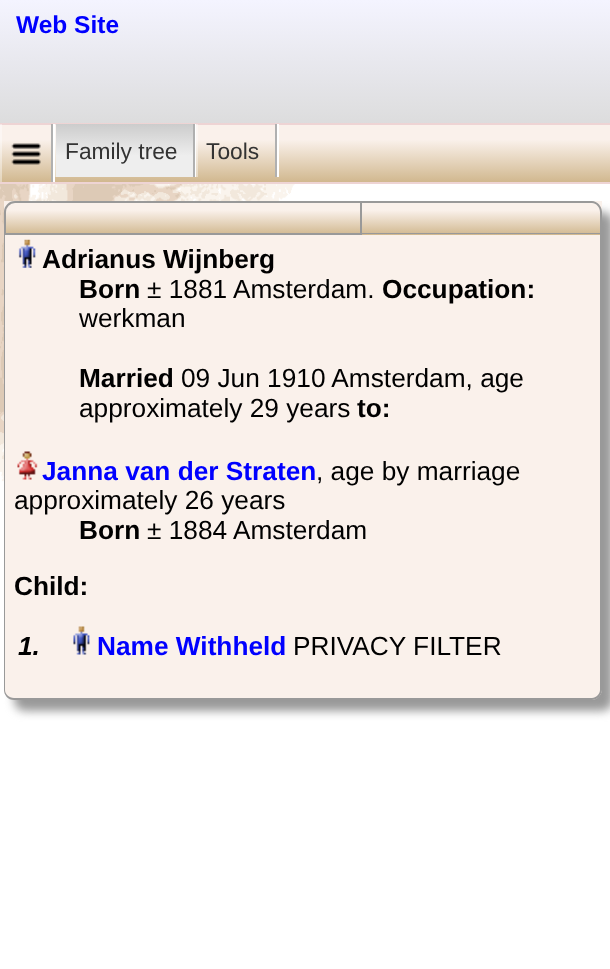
async function draw(canvas) {
	canvas.width = 610;
	canvas.height = 969;
	const c = canvas.getContext('2d');
	c.miterLimit = 4;
	c.fontKerning = 'normal';
	async function loadImage(src) {
		const img = new Image();
		img.src = src;
		await img.decode();
		return img;
	}
	let gradient;

	c.fillStyle = '#fff';
	c.fillRect(0, 0, 610, 969);
	c.drawImage(await loadImage('img1.png'), 0, 184, 448, 323);
	gradient = c.createLinearGradient(305, 0, 305, 131);
	gradient.addColorStop(0, '#f4f4ff');
	gradient.addColorStop(1, '#dbdbdb');
	c.fillStyle = gradient;
	c.fillRect(0, 0, 610, 123);
	c.font = 'bold 24.5px Liberation Sans';
	c.fillStyle = '#00f';
	c.fillText('Web Site', 16, 33);
	gradient = c.createLinearGradient(305, 182, 305, 124);
	gradient.addColorStop(0, '#d1b88f');
	gradient.addColorStop(0.73, '#faf1eb');
	c.fillStyle = gradient;
	c.fillRect(0, 125, 610, 57);
	for (const [x, y, w, h, color] of [
		[0, 123, 610, 2, '#eed4d4'],
		[0, 182, 610, 2, '#eed4d4'],
		[53, 124, 2, 58, '#fff'],
		[0, 124, 2, 58, '#ffffff66'],
		[51, 124, 2, 58, '#b0b0b0'],
	]) {
		c.fillStyle = color;
		c.fillRect(x, y, w, h);
	}
	c.drawImage(await loadImage('img2.png'), 11, 143, 30, 22);
	c.fillStyle = '#fff';
	c.fillRect(195, 124, 1, 53);
	c.fillStyle = '#ffffff66';
	c.fillRect(55, 124, 1, 53);
	gradient = c.createLinearGradient(124, 124, 124, 177);
	gradient.addColorStop(0, '#ccc');
	gradient.addColorStop(0.6, '#eee');
	gradient.addColorStop(1, '#eee');
	c.fillStyle = gradient;
	c.fillRect(56, 124, 137, 53);
	c.fillStyle = '#b0b0b0';
	c.fillRect(193, 124, 2, 53);
	c.font = '22.75px Liberation Sans';
	c.fillStyle = '#333';
	c.fillText('Family tree', 65, 159);
	for (const [x, y, w, h, color] of [
		[277, 124, 2, 53, '#fff'],
		[196, 124, 2, 53, '#ffffff66'],
		[275, 124, 2, 53, '#b0b0b0'],
	]) {
		c.fillStyle = color;
		c.fillRect(x, y, w, h);
	}
	c.fillStyle = '#333';
	c.fillText('Tools', 206, 159);
	c.fillStyle = '#999';
	c.filter = 'blur(5px)';
	c.beginPath();
	c.roundRect(14, 212, 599, 499, 11);
	c.fill();
	c.filter = 'none';
	c.fillStyle = '#faf1eb';
	c.beginPath();
	c.roundRect(4, 201, 598, 499, 11);
	c.fill();
	gradient = c.createLinearGradient(303, 235, 303, 201);
	gradient.addColorStop(0, '#d1b88f');
	gradient.addColorStop(0.73, '#faf1eb');
	c.fillStyle = gradient;
	c.fillRect(4, 201, 598, 34);
	c.beginPath();
	c.roundRect(5, 202, 356, 32, [10, 0, 0, 0]);
	c.strokeStyle = '#999';
	c.lineWidth = 2;
	c.stroke();
	c.fillStyle = '#999';
	c.beginPath();
	c.moveTo(362, 201);
	c.lineTo(592, 201);
	c.bezierCurveTo(597, 201, 602, 206, 602, 212);
	c.lineTo(602, 234);
	c.lineTo(362, 234);
	c.closePath();
	c.moveTo(362, 203);
	c.lineTo(592, 203);
	c.bezierCurveTo(596, 203, 600, 207, 600, 212);
	c.lineTo(600, 233);
	c.lineTo(362, 233);
	c.closePath();
	c.fill('evenodd');
	c.beginPath();
	c.moveTo(4, 234);
	c.lineTo(602, 234);
	c.lineTo(602, 690);
	c.bezierCurveTo(602, 695, 597, 700, 592, 700);
	c.lineTo(14, 700);
	c.bezierCurveTo(8, 700, 4, 695, 4, 690);
	c.closePath();
	c.moveTo(5, 234);
	c.lineTo(600, 234);
	c.lineTo(600, 690);
	c.bezierCurveTo(600, 694, 596, 698, 592, 698);
	c.lineTo(14, 698);
	c.bezierCurveTo(9, 698, 5, 694, 5, 690);
	c.closePath();
	c.fill('evenodd');
	c.drawImage(await loadImage('img3.png'), 18, 239, 18, 29);
	c.font = 'bold 26.25px Liberation Sans';
	c.fillStyle = '#000';
	c.fillText('Adrianus Wijnberg', 42, 268);
	c.fillText('Born', 79, 298);
	c.font = '26.25px Liberation Sans';
	c.fillText('± 1881 Amsterdam.', 147, 298);
	c.font = 'bold 26.25px Liberation Sans';
	c.fillText('Occupation:', 382, 298);
	c.font = '26.25px Liberation Sans';
	c.fillText('werkman', 79, 327);
	c.font = 'bold 26.25px Liberation Sans';
	c.fillText('Married', 79, 387);
	c.font = '26.25px Liberation Sans';
	c.fillText('09 Jun 1910 Amsterdam, age', 181, 387);
	c.fillText('approximately 29 years', 79, 417);
	c.font = 'bold 26.25px Liberation Sans';
	c.fillText('to:', 357, 417);
	c.drawImage(await loadImage('img4.png'), 17, 451, 21, 29);
	c.fillStyle = '#00f';
	c.fillText('Janna van der Straten', 42, 480);
	c.font = '26.25px Liberation Sans';
	c.fillStyle = '#000';
	c.fillText(', age by marriage', 316, 480);
	c.fillText('approximately 26 years', 14, 509);
	c.font = 'bold 26.25px Liberation Sans';
	c.fillText('Born', 79, 539);
	c.font = '26.25px Liberation Sans';
	c.fillText('± 1884 Amsterdam', 147, 539);
	c.font = 'bold 26.25px Liberation Sans';
	c.fillText('Child:', 14, 595);
	c.font = 'italic bold 26.25px Liberation Sans';
	c.fillText('1.', 18, 655);
	c.drawImage(await loadImage('img5.png'), 73, 626, 17, 29);
	c.font = 'bold 26.25px Liberation Sans';
	c.fillStyle = '#00f';
	c.fillText('Name Withheld', 97, 655);
	c.font = '26.25px Liberation Sans';
	c.fillStyle = '#000';
	c.fillText('PRIVACY FILTER', 293, 655);
}

draw(document.querySelector('canvas'));
